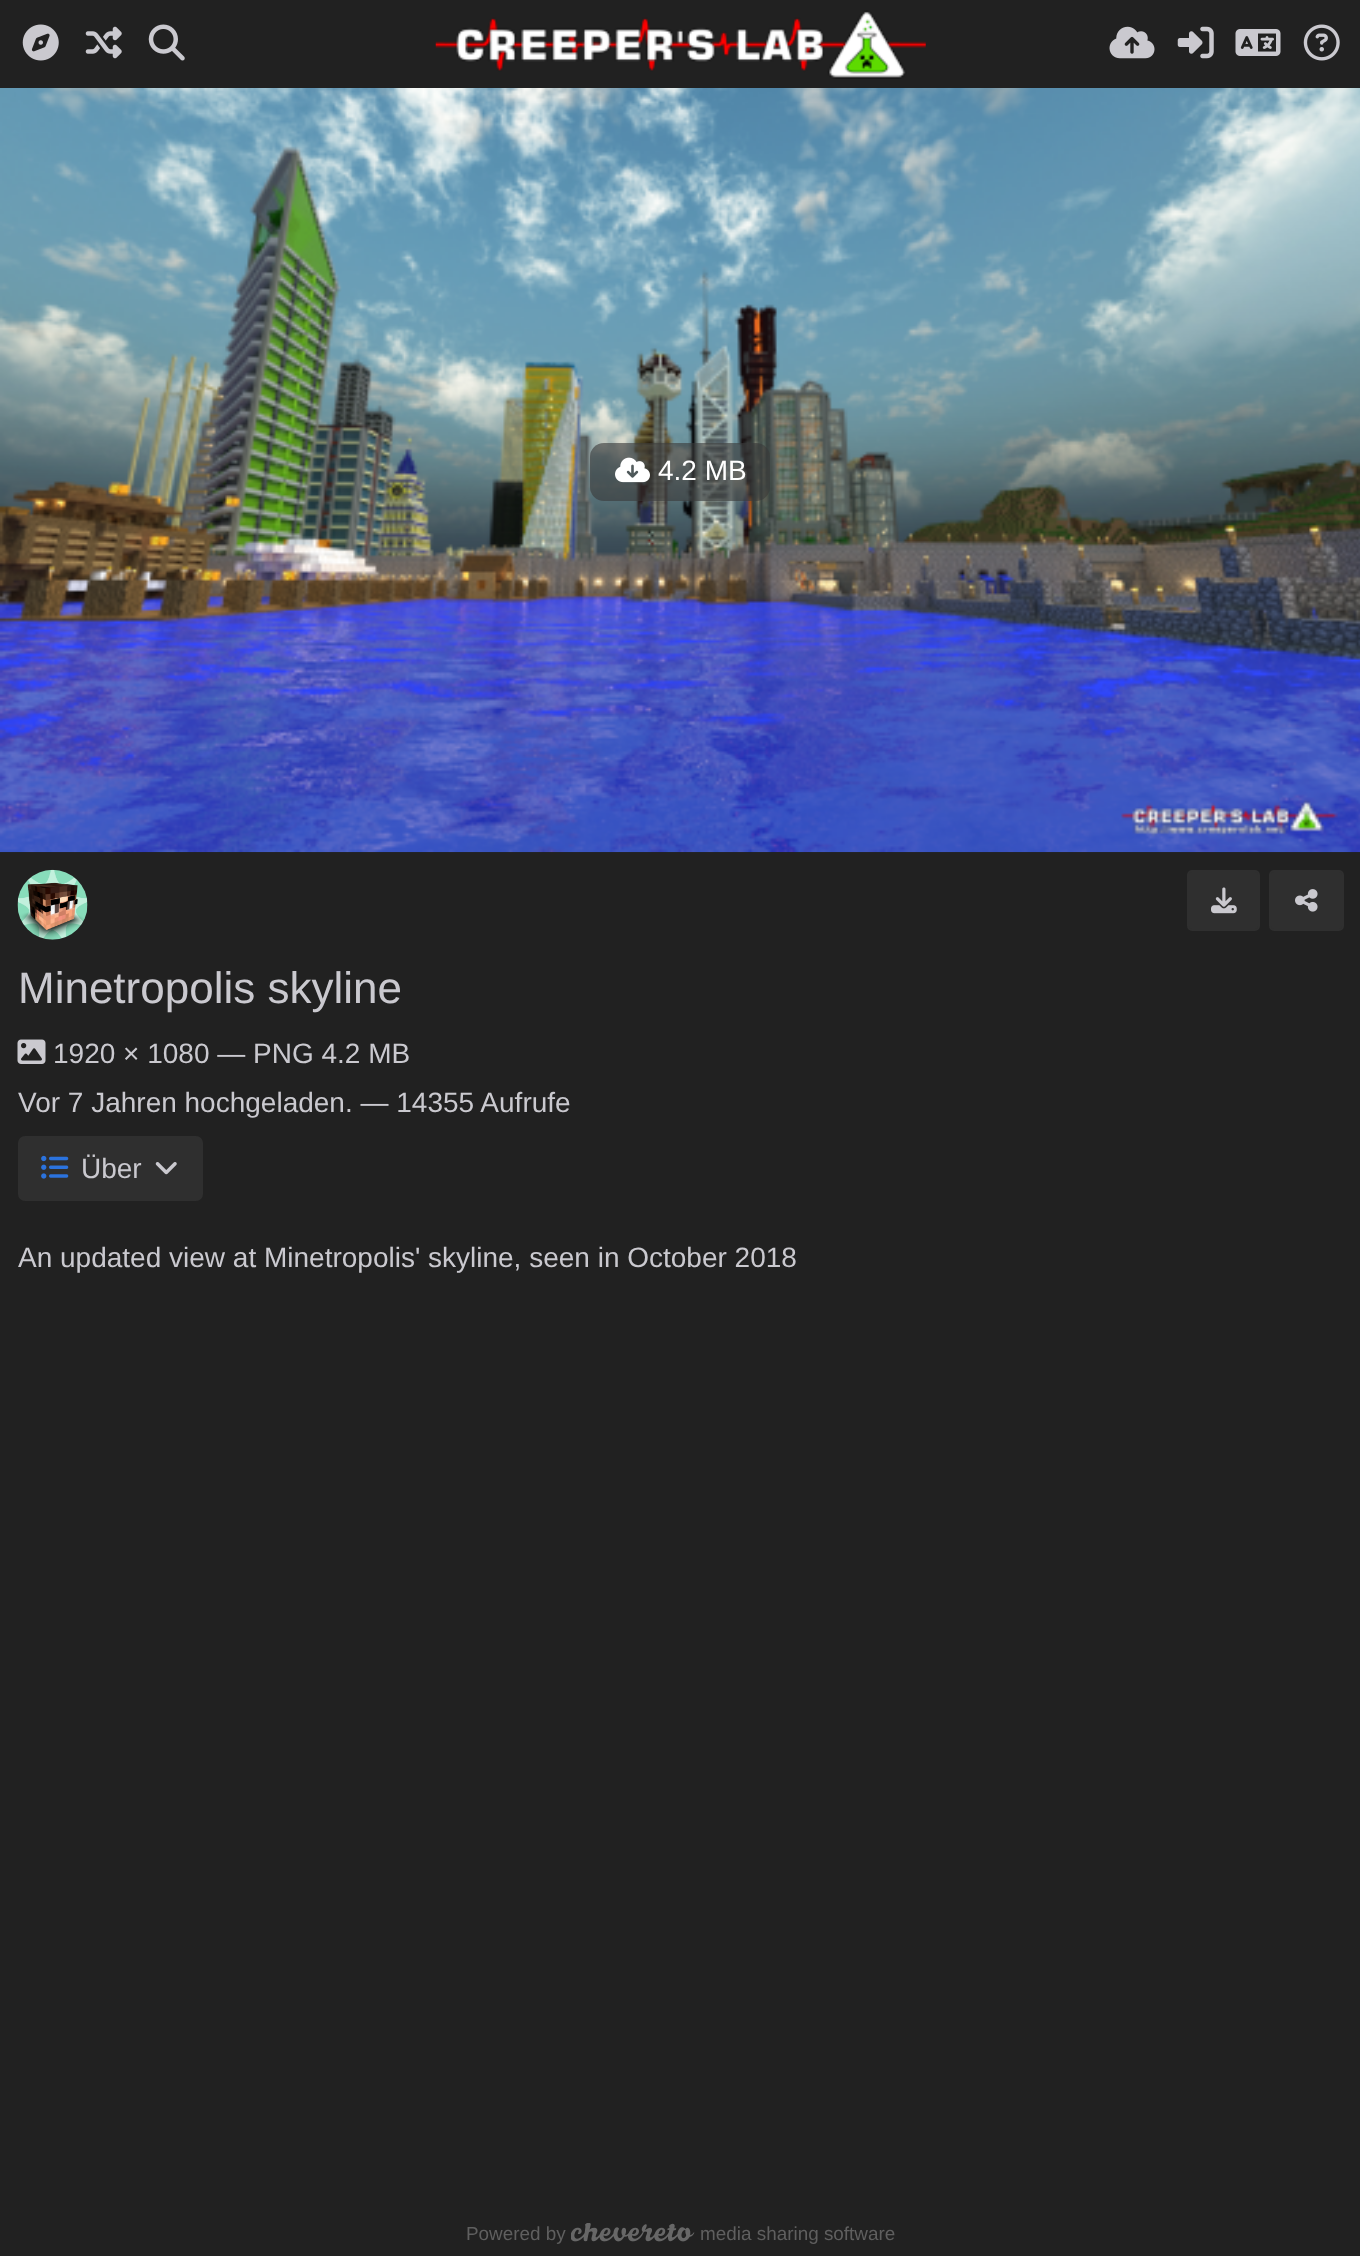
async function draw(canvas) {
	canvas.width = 1360;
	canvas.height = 2256;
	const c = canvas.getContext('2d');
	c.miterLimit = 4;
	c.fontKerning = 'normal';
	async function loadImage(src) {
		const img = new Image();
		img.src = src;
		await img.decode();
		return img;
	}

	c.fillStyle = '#212121';
	c.fillRect(0, 0, 1360, 2256);
	c.drawImage(await loadImage('img1.png'), 22, 24, 37, 37);
	c.drawImage(await loadImage('img2.png'), 85, 26, 37, 33);
	c.drawImage(await loadImage('img3.png'), 148, 24, 37, 37);
	c.drawImage(await loadImage('img4.png'), 435, 10, 491, 69);
	c.drawImage(await loadImage('img5.png'), 1109, 26, 46, 33);
	c.drawImage(await loadImage('img6.png'), 1177, 26, 37, 33);
	c.drawImage(await loadImage('img7.png'), 1235, 29, 46, 27);
	c.drawImage(await loadImage('img8.png'), 1303, 24, 37, 37);
	c.drawImage(await loadImage('img9.png'), 0, 88, 1360, 765);
	c.fillStyle = '#3a3a3a9c';
	c.beginPath();
	c.roundRect(590, 443, 180, 58, 14);
	c.fill();
	c.drawImage(await loadImage('img10.png'), 615, 457, 35, 26);
	c.font = '28px Liberation Sans';
	c.fillStyle = '#fff';
	c.fillText('4.2 MB', 658, 480);
	c.drawImage(await loadImage('img11.png'), 17, 869, 71, 71);
	c.fillStyle = '#2f2f2f';
	c.beginPath();
	c.roundRect(1188, 871, 71, 59, 4);
	c.fill();
	c.strokeStyle = '#2f2f2f';
	c.lineWidth = 2;
	c.stroke();
	c.drawImage(await loadImage('img12.png'), 1211, 887, 26, 27);
	c.beginPath();
	c.roundRect(1270, 871, 73, 59, 4);
	c.fill();
	c.stroke();
	c.drawImage(await loadImage('img13.png'), 1295, 889, 23, 23);
	c.font = '44px Liberation Sans';
	c.fillStyle = '#cac9cf';
	c.fillText('Minetropolis skyline', 18, 1003);
	c.drawImage(await loadImage('img14.png'), 17, 1039, 29, 25);
	c.font = '28px Liberation Sans';
	c.fillText('1920 × 1080 — PNG 4.2 MB', 53, 1063);
	c.fillText('Vor 7 Jahren hochgeladen. — 14355 Aufrufe', 18, 1112);
	c.fillStyle = '#2f2f2f';
	c.beginPath();
	c.roundRect(18, 1136, 185, 65, 7);
	c.fill();
	c.drawImage(await loadImage('img15.png'), 41, 1155, 28, 24);
	c.fillStyle = '#cac9cf';
	c.fillText('Über', 81, 1178);
	c.drawImage(await loadImage('img16.png'), 155, 1162, 22, 13);
	c.fillText('An updated view at Minetropolis\' skyline, seen in October 2018', 18, 1267);
	c.font = '18.9px Liberation Sans';
	c.fillStyle = '#5f5f5f';
	c.fillText('Powered by', 466, 2240);
	c.drawImage(await loadImage('img17.png'), 571, 2223, 124, 19);
	c.fillText('media sharing software', 700, 2240);
}

draw(document.querySelector('canvas'));
